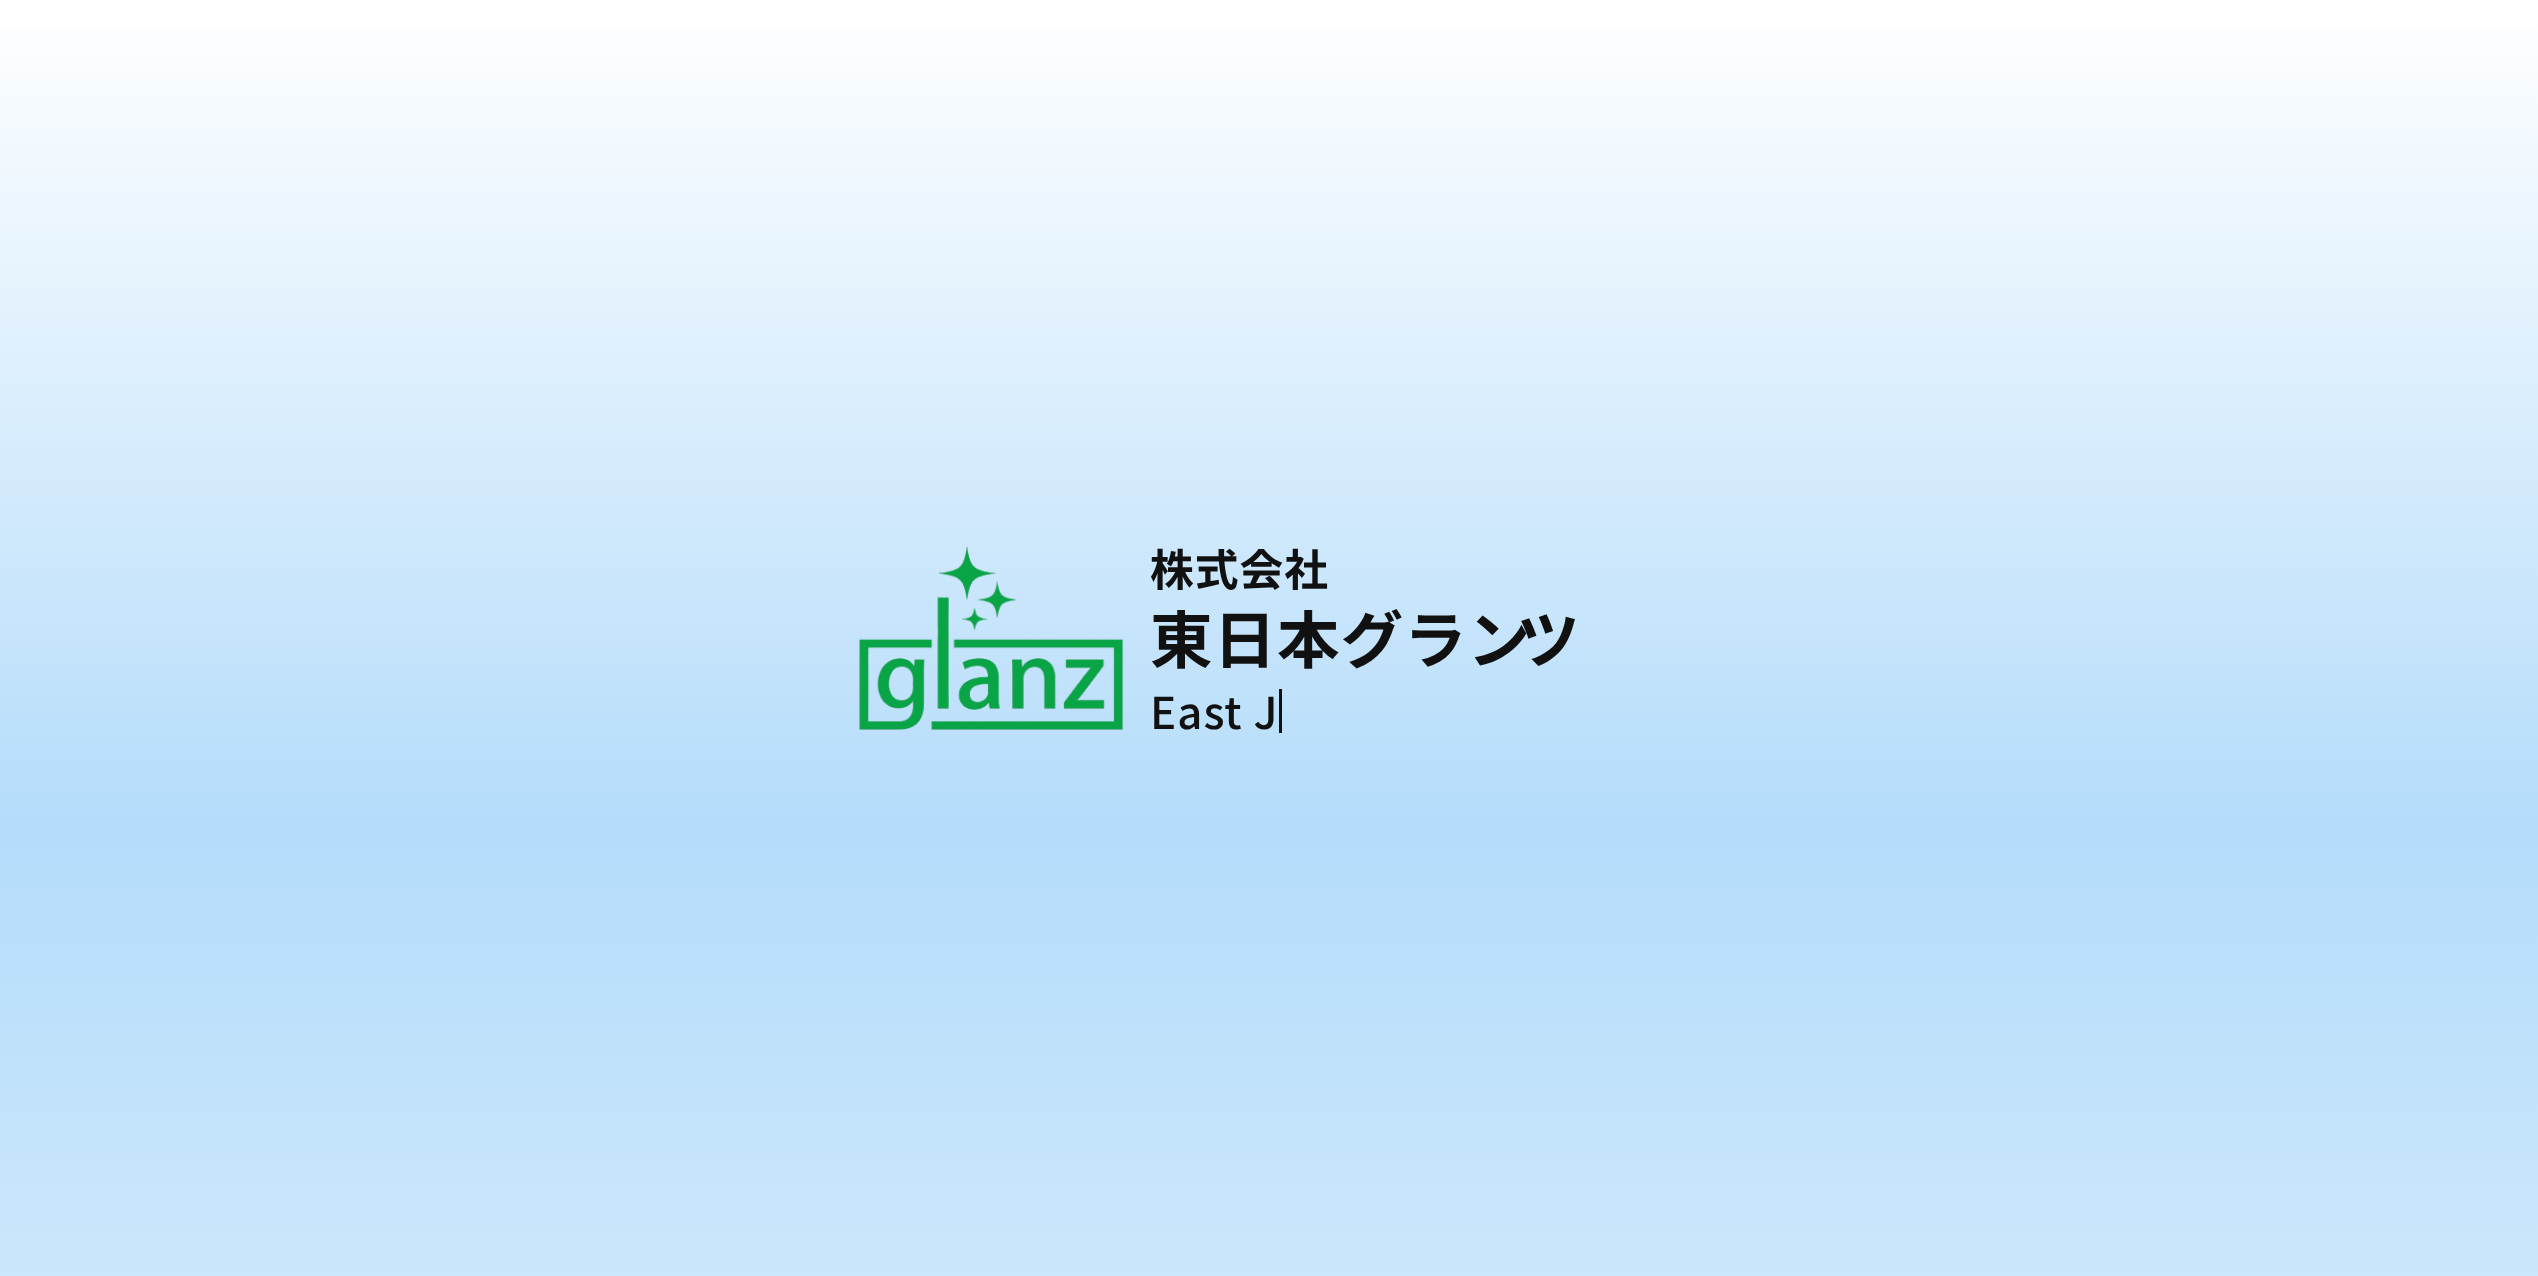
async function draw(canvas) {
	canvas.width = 2538;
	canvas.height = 1276;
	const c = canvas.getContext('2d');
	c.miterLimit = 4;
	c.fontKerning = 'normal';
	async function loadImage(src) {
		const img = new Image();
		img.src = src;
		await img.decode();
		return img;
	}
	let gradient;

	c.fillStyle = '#fff';
	c.fillRect(0, 0, 2538, 1276);
	gradient = c.createLinearGradient(1269, 0, 1269, 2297);
	gradient.addColorStop(0, '#fff');
	gradient.addColorStop(0.36, '#b4dcfa');
	gradient.addColorStop(1, '#fff');
	c.fillStyle = gradient;
	c.fillRect(0, 28, 2538, 1248);
	c.drawImage(await loadImage('img1.png'), 859, 546, 265, 184);
	c.letterSpacing = '1px';
	c.font = 'bold 43.75px Noto Sans JP';
	c.fillStyle = '#111';
	c.fillText('株式会社', 1150, 586);
	c.font = 'bold 62.5px Noto Sans JP';
	c.fillText('東日本グラン', 1150, 663);
	c.fillText('ツ', 1517, 663);
	c.fillRect(1279, 689, 3, 44);
	c.font = '500 43.75px Noto Sans JP';
	c.fillText('East J', 1150, 729);
}

draw(document.querySelector('canvas'));
